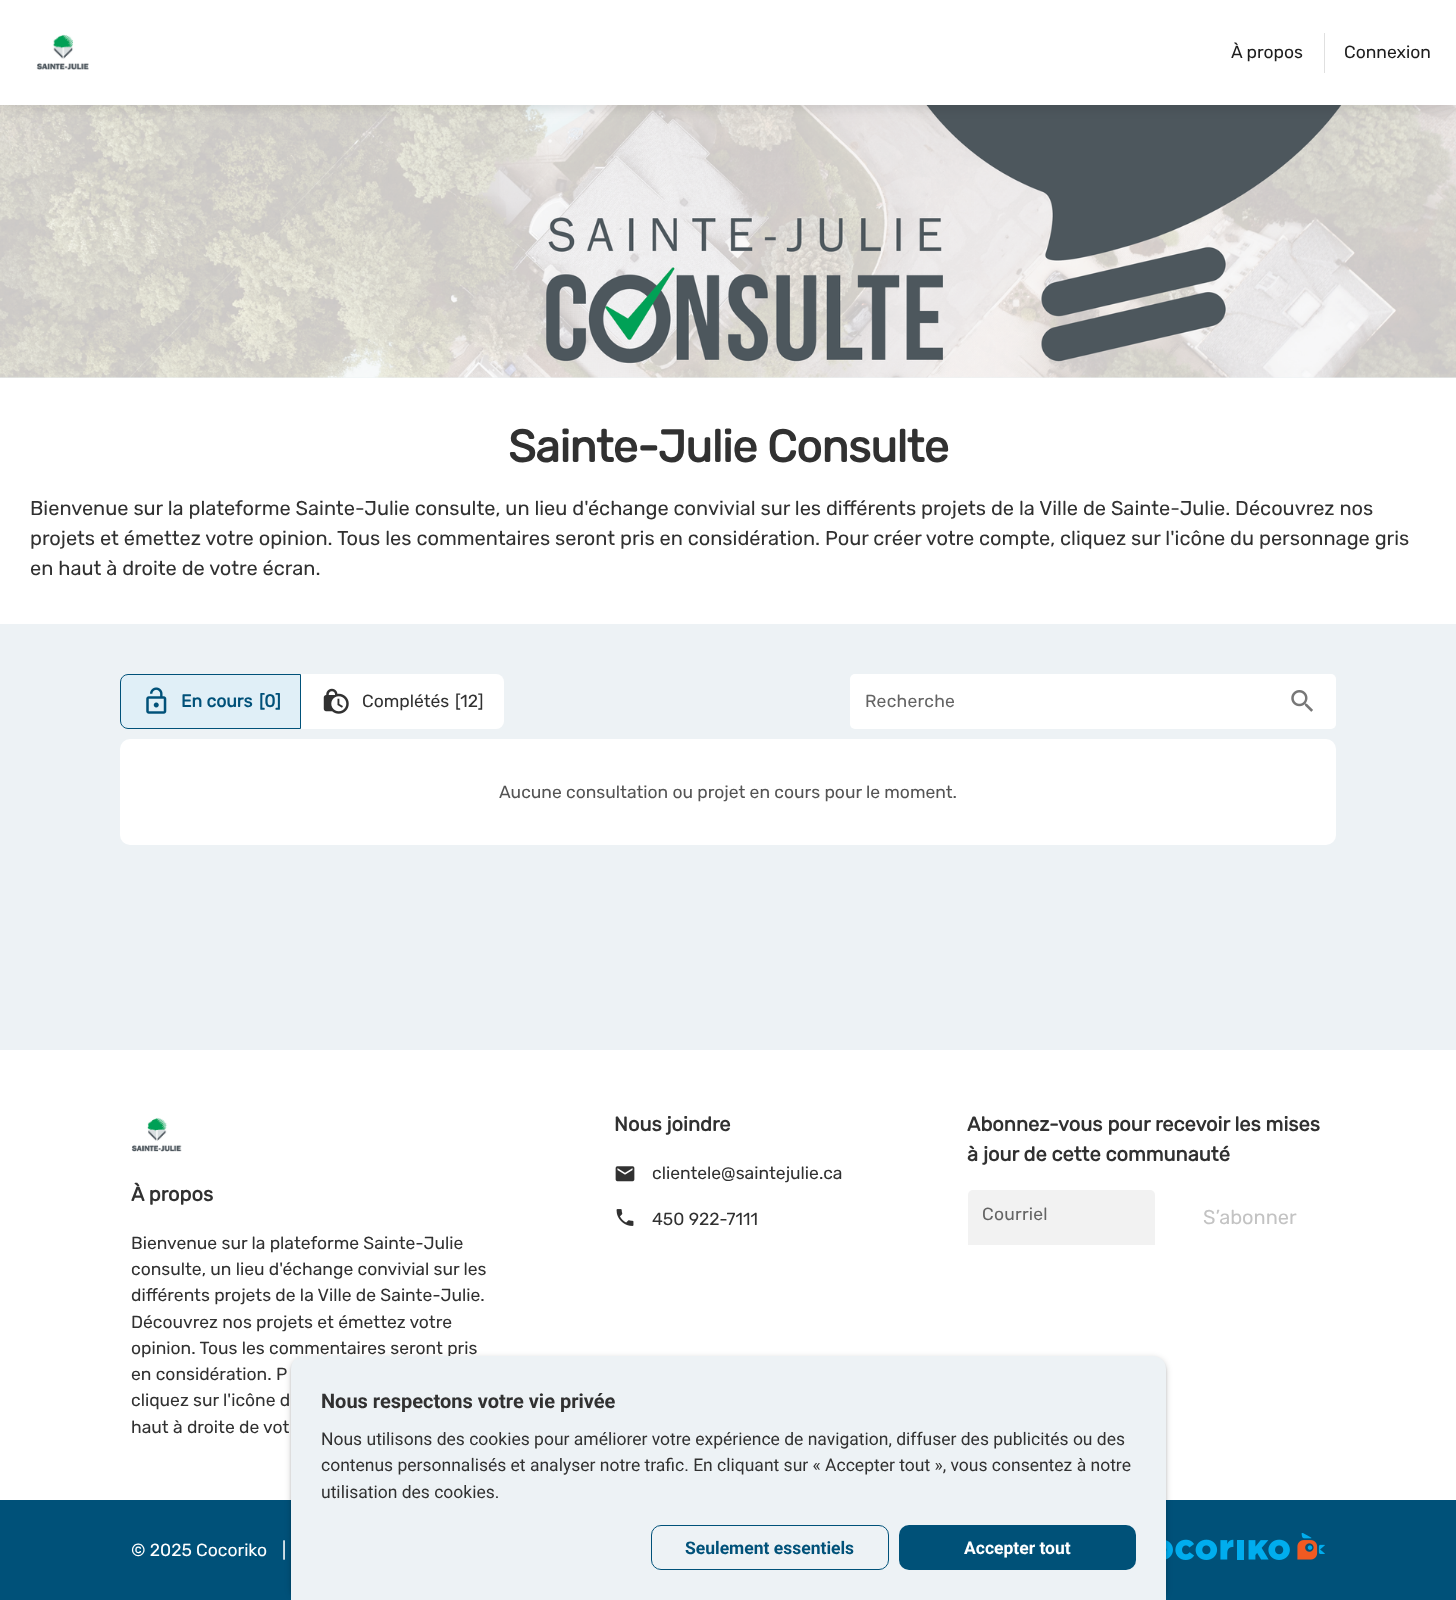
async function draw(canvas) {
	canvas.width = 1456;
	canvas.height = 1600;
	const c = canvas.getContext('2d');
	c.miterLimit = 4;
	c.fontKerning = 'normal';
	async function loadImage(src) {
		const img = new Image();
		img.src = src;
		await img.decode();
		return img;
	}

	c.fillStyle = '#edf2f5';
	c.fillRect(0, 0, 1456, 1600);
	c.drawImage(await loadImage('img2.png'), 0, 105, 1456, 273);
	c.fillStyle = '#0100001a';
	c.filter = 'blur(6px)';
	c.beginPath();
	c.rect(0, 3, 1456, 105);
	c.fill();
	c.filter = 'none';
	c.fillStyle = '#fff';
	c.fillRect(0, 0, 1456, 105);
	c.drawImage(await loadImage('img1.png'), 36, 34, 53, 36);
	c.font = '300 17.5px Rubik';
	c.fillStyle = '#1d1d1d';
	c.fillText('À propos', 1231, 58);
	c.fillStyle = '#e0e0e0';
	c.fillRect(1324, 33, 1, 40);
	c.fillStyle = '#1d1d1d';
	c.fillText('Connexion', 1344, 58);
	c.fillStyle = '#fff';
	c.fillRect(0, 378, 1456, 246);
	c.letterSpacing = '-0.7px';
	c.font = 'bold 45px Rubik';
	c.fillStyle = '#313131';
	c.fillText('Sainte-Julie Consulte', 508, 462);
	c.letterSpacing = '0px';
	c.font = '300 20px Rubik';
	for (const [text, x, y] of [
		['Bienvenue sur la plateforme Sainte-Julie consulte, un lieu d\'échange convivial sur les différents projets de la Ville de Sainte-Julie. Découvrez nos', 30, 515],
		['projets et émettez votre opinion. Tous les commentaires seront pris en considération. Pour créer votre compte, cliquez sur l\'icône du personnage gris', 30, 545],
		['en haut à droite de votre écran.', 30, 575],
	]) {
		c.fillText(text, x, y);
	}
	c.fillStyle = '#fff';
	c.beginPath();
	c.roundRect(120, 674, 384, 55, 8);
	c.fill();
	c.fillStyle = '#e0eff7';
	c.beginPath();
	c.roundRect(120.5, 674.5, 180, 54, [7.5, 0, 0, 7.5]);
	c.fill();
	c.strokeStyle = '#005179';
	c.stroke();
	c.drawImage(await loadImage('img3.png'), 146, 687, 21, 27);
	c.font = 'bold 17.5px Rubik';
	c.fillStyle = '#005179';
	c.fillText('En cours', 181, 707);
	c.fillText('[0]', 259, 707);
	c.drawImage(await loadImage('img4.png'), 323, 688, 26, 26);
	c.font = '300 17.5px Rubik';
	c.fillStyle = '#313131';
	c.fillText('Complétés', 362, 707);
	c.fillText('[12]', 455, 707);
	c.fillStyle = '#fff';
	c.beginPath();
	c.roundRect(850, 674, 486, 55, 5);
	c.fill();
	c.letterSpacing = '0.25px';
	c.fillStyle = '#646464';
	c.fillText('Recherche', 865, 707);
	c.drawImage(await loadImage('img5.png'), 1291, 690, 22, 22);
	c.fillStyle = '#fff';
	c.beginPath();
	c.roundRect(120, 739, 1216, 106, 10);
	c.fill();
	c.letterSpacing = '0px';
	c.fillStyle = '#545454';
	c.fillText('Aucune consultation ou projet en cours pour le moment.', 499, 798);
	c.fillStyle = '#fff';
	c.fillRect(0, 1050, 1456, 450);
	c.font = 'bold 20px Rubik';
	c.fillStyle = '#313131';
	c.fillText('Nous joindre', 614, 1131);
	c.drawImage(await loadImage('img6.png'), 615, 1166, 20, 16);
	c.font = '300 17.5px Rubik';
	c.fillText('clientele@saintejulie.ca', 652, 1179);
	c.drawImage(await loadImage('img7.png'), 616, 1209, 18, 17);
	c.fillText('450 922-7111', 652, 1225);
	c.font = 'bold 20px Rubik';
	c.fillText('Abonnez-vous pour recevoir les mises', 967, 1131);
	c.fillText('à jour de cette communauté', 967, 1161);
	c.fillStyle = '#f2f2f2';
	c.beginPath();
	c.roundRect(968, 1190, 187, 55, [5, 5, 0, 0]);
	c.fill();
	c.letterSpacing = '0.25px';
	c.font = '300 17.5px Rubik';
	c.fillStyle = '#646464';
	c.fillText('Courriel', 982, 1220);
	c.letterSpacing = '0px';
	c.font = '300 20px Rubik';
	c.fillStyle = '#c3c3c3';
	c.fillText('S’abonner', 1203, 1224);
	c.drawImage(await loadImage('img8.png'), 131, 1117, 51, 35);
	c.font = 'bold 20px Rubik';
	c.fillStyle = '#313131';
	c.fillText('À propos', 131, 1201);
	c.font = '300 17.5px Rubik';
	for (const [text, x, y] of [
		['Bienvenue sur la plateforme Sainte-Julie', 131, 1249],
		['consulte, un lieu d\'échange convivial sur les', 131, 1275],
		['différents projets de la Ville de Sainte-Julie.', 131, 1301],
		['Découvrez nos projets et émettez votre', 131, 1328],
		['opinion. Tous les commentaires seront pris', 131, 1354],
		['en considération. P', 131, 1380],
		['cliquez sur l\'icône d', 131, 1406],
		['haut à droite de vot', 131, 1433],
	]) {
		c.fillText(text, x, y);
	}
	c.fillStyle = '#005179';
	c.fillRect(0, 1500, 1456, 100);
	c.fillStyle = '#fff';
	c.fillText('© 2025 Cocoriko', 131, 1556);
	c.fillText('|', 282, 1556);
	c.drawImage(await loadImage('img9.png'), 1166, 1533, 159, 27);
	c.fillStyle = '#00000024';
	c.filter = 'blur(1px)';
	c.beginPath();
	c.roundRect(291, 1359, 875, 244, 13);
	c.fill();
	c.filter = 'none';
	c.fillStyle = '#00000033';
	c.filter = 'blur(3px)';
	c.beginPath();
	c.roundRect(291, 1358, 875, 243, 13);
	c.fill();
	c.filter = 'none';
	c.fillStyle = '#edf2f5';
	c.beginPath();
	c.roundRect(291, 1356, 875, 244, [13, 13, 0, 0]);
	c.fill();
	c.font = 'bold 20px Roboto';
	c.fillStyle = '#313131';
	c.fillText('Nous respectons votre vie privée', 321, 1408);
	c.font = '17.5px Roboto';
	for (const [text, x, y] of [
		['Nous utilisons des cookies pour améliorer votre expérience de navigation, diffuser des publicités ou des', 321, 1445],
		['contenus personnalisés et analyser notre trafic. En cliquant sur « Accepter tout », vous consentez à notre', 321, 1471],
		['utilisation des cookies.', 321, 1498],
	]) {
		c.fillText(text, x, y);
	}
	c.beginPath();
	c.roundRect(651.5, 1525.5, 237, 44, 9.5);
	c.stroke();
	c.font = 'bold 17.5px Roboto';
	c.fillStyle = '#005179';
	c.fillText('Seulement essentiels', 685, 1554);
	c.fillStyle = '#005178';
	c.beginPath();
	c.roundRect(899, 1525, 237, 45, 10);
	c.fill();
	c.fillStyle = '#fff';
	c.fillText('Accepter tout', 964, 1554);
}

draw(document.querySelector('canvas'));
